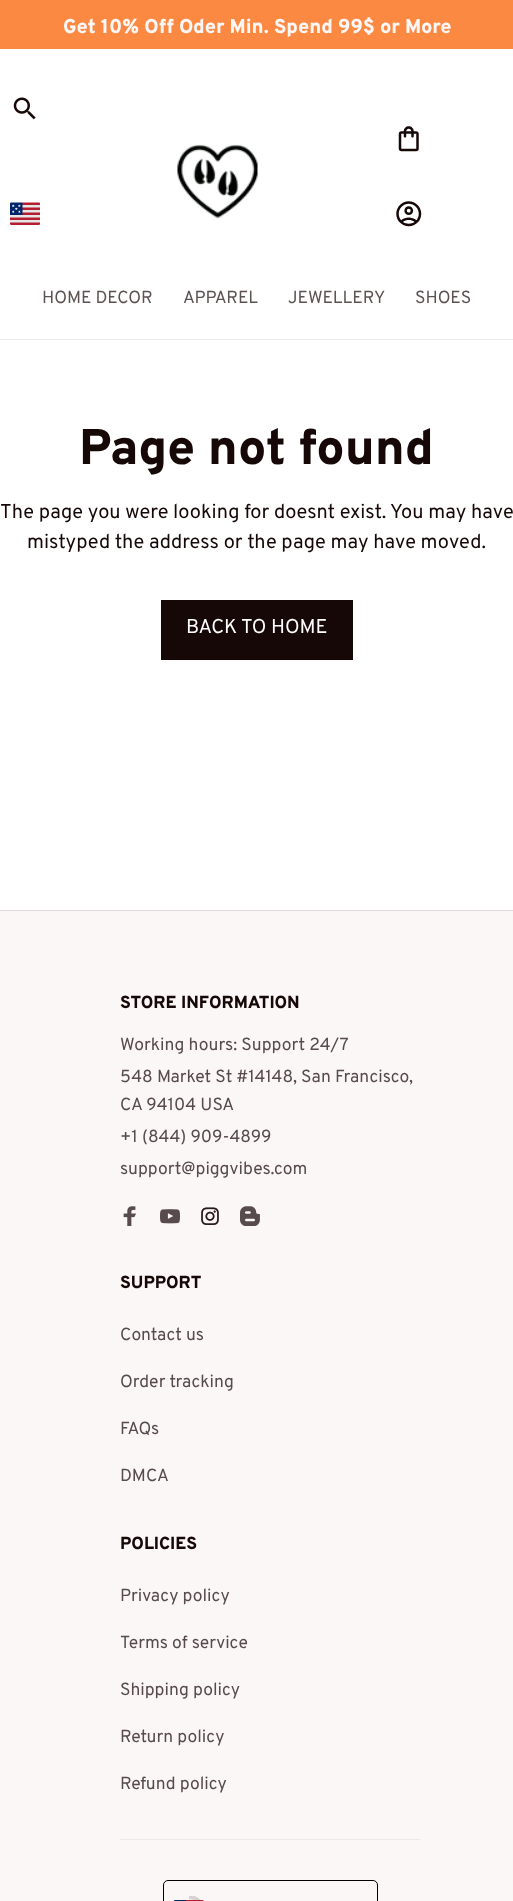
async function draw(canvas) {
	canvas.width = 513;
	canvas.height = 1901;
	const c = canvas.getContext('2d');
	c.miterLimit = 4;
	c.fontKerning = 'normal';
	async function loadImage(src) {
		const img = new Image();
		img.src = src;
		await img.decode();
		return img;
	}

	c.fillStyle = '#fff';
	c.fillRect(0, 0, 513, 1901);
	c.fillStyle = '#fb8941';
	c.fillRect(0, 0, 513, 49);
	c.font = '800 20px Overpass';
	c.fillStyle = '#fcf7f7';
	c.fillText('Get 10% Off Oder Min. Spend 99$ or More', 63, 33);
	c.fillStyle = '#ecebeb';
	c.fillRect(0, 339, 513, 1);
	c.drawImage(await loadImage('img1.png'), 13, 97, 23, 23);
	c.drawImage(await loadImage('img2.png'), 10, 202, 30, 23);
	c.drawImage(await loadImage('img3.png'), 177, 144, 81, 75);
	c.drawImage(await loadImage('img4.png'), 398, 126, 21, 26);
	c.drawImage(await loadImage('img5.png'), 396, 201, 26, 26);
	c.font = '17.5px Overpass';
	c.fillStyle = '#5d5252';
	for (const [text, x, y] of [
		['HOME DECOR', 42, 303],
		['APPAREL', 183, 303],
		['JEWELLERY', 288, 303],
		['SHOES', 415, 303],
	]) {
		c.fillText(text, x, y);
	}
	c.font = '800 50px Overpass';
	c.fillStyle = '#170808';
	c.fillText('Page not found', 79, 464);
	c.font = '20px Overpass';
	c.fillText('The page you were looking for doesnt exist. You may have', 0, 518);
	c.fillText('mistyped the address or the page may have moved.', 27, 548);
	c.fillRect(161, 600, 192, 60);
	c.fillStyle = '#fff';
	c.fillText('BACK TO HOME', 186, 633);
	c.fillStyle = '#fcf7f7';
	c.fillRect(0, 911, 513, 990);
	c.fillStyle = '#e1dada';
	c.fillRect(0, 910, 513, 1);
	c.font = '800 17.5px Overpass';
	c.fillStyle = '#170808';
	c.fillText('STORE INFORMATION', 120, 1008);
	c.font = '17.5px Overpass';
	c.fillStyle = '#574b4b';
	for (const [text, x, y] of [
		['Working hours: Support 24/7', 120, 1050],
		['548 Market St #14148, San Francisco,', 120, 1082],
		['CA 94104 USA', 120, 1110],
		['+1 (844) 909-4899', 120, 1142],
		['support@piggvibes.com', 120, 1174],
	]) {
		c.fillText(text, x, y);
	}
	c.drawImage(await loadImage('img6.png'), 123, 1206, 13, 20);
	c.drawImage(await loadImage('img7.png'), 160, 1209, 20, 15);
	c.drawImage(await loadImage('img8.png'), 201, 1207, 18, 18);
	c.drawImage(await loadImage('img9.png'), 240, 1206, 20, 20);
	c.font = '800 17.5px Overpass';
	c.fillStyle = '#170808';
	c.fillText('SUPPORT', 120, 1288);
	c.font = '17.5px Overpass';
	c.fillStyle = '#574b4b';
	for (const [text, x, y] of [
		['Contact us', 120, 1340],
		['Order tracking', 120, 1387],
		['FAQs', 120, 1434],
		['DMCA', 120, 1481],
	]) {
		c.fillText(text, x, y);
	}
	c.font = '800 17.5px Overpass';
	c.fillStyle = '#170808';
	c.fillText('POLICIES', 120, 1549);
	c.font = '17.5px Overpass';
	c.fillStyle = '#574b4b';
	for (const [text, x, y] of [
		['Privacy policy', 120, 1601],
		['Terms of service', 120, 1648],
		['Shipping policy', 120, 1695],
		['Return policy', 120, 1742],
		['Refund policy', 120, 1789],
	]) {
		c.fillText(text, x, y);
	}
	c.fillStyle = '#eee9e9';
	c.fillRect(120, 1839, 300, 1);
	c.beginPath();
	c.roundRect(163.5, 1880.5, 214, 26, 4.5);
	c.strokeStyle = '#000';
	c.stroke();
	c.save();
	c.beginPath();
	c.rect(174, 1896, 30, 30);
	c.clip();
	c.beginPath();
	c.moveTo(189, 1897);
	c.bezierCurveTo(205.5, 1897, 208, 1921.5, 191.5, 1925);
	c.bezierCurveTo(188, 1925.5, 184, 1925, 181, 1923);
	c.bezierCurveTo(177, 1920.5, 174.5, 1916, 175, 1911);
	c.strokeStyle = '#d7d3d3';
	c.lineWidth = 4;
	c.stroke();
	c.restore();
	c.drawImage(await loadImage('img10.png'), 173, 1900, 31, 1);
}

draw(document.querySelector('canvas'));
